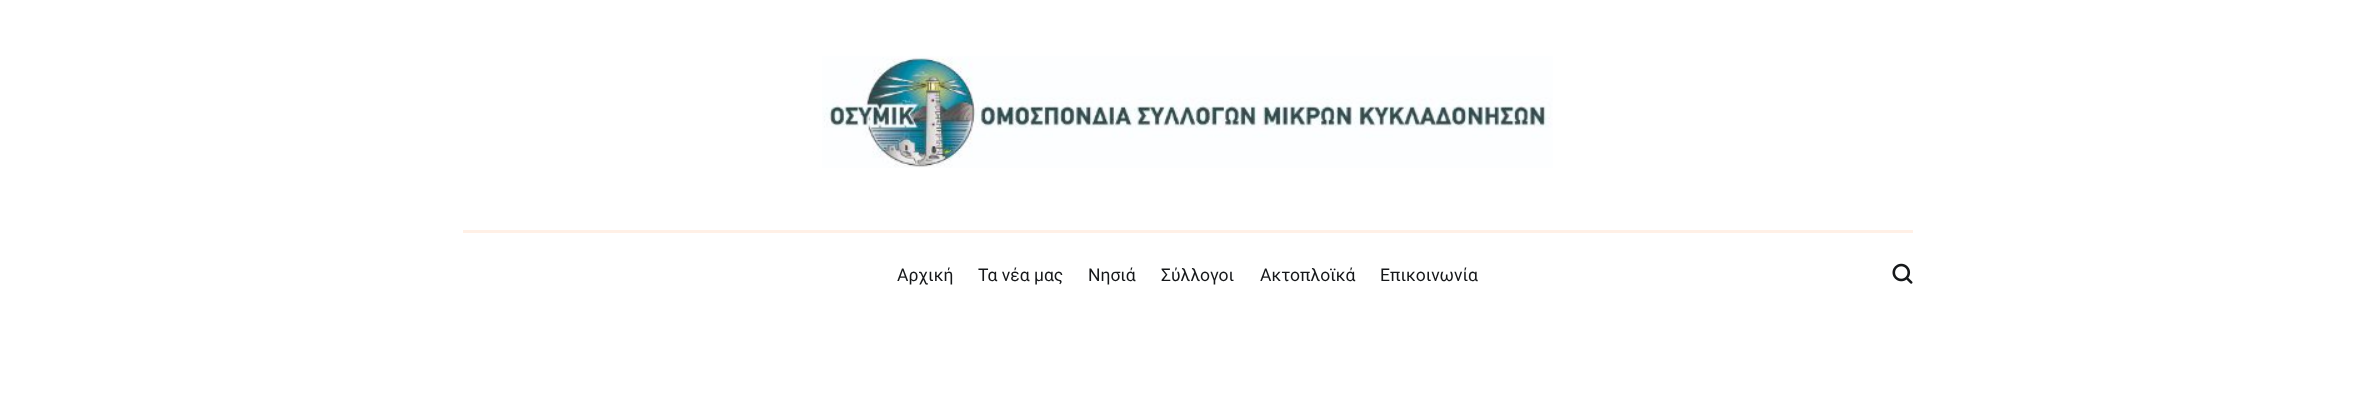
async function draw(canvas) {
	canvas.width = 2375;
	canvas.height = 406;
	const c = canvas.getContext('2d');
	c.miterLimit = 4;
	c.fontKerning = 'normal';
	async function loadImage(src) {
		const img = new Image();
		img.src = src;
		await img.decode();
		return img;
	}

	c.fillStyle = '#fff';
	c.fillRect(0, 0, 2375, 406);
	c.drawImage(await loadImage('img1.png'), 822, 56, 731, 112);
	c.fillStyle = '#fff0e6';
	c.fillRect(463, 230, 1450, 3);
	c.font = '17.5px Roboto';
	c.fillStyle = '#16181a';
	for (const [text, x, y] of [
		['Αρχική', 897, 281],
		['Τα νέα μας', 978, 281],
		['Νησιά', 1088, 281],
		['Σύλλογοι', 1161, 281],
		['Ακτοπλοϊκά', 1260, 281],
		['Επικοινωνία', 1380, 281],
	]) {
		c.fillText(text, x, y);
	}
	c.drawImage(await loadImage('img2.png'), 1892, 263, 21, 21);
}

draw(document.querySelector('canvas'));
